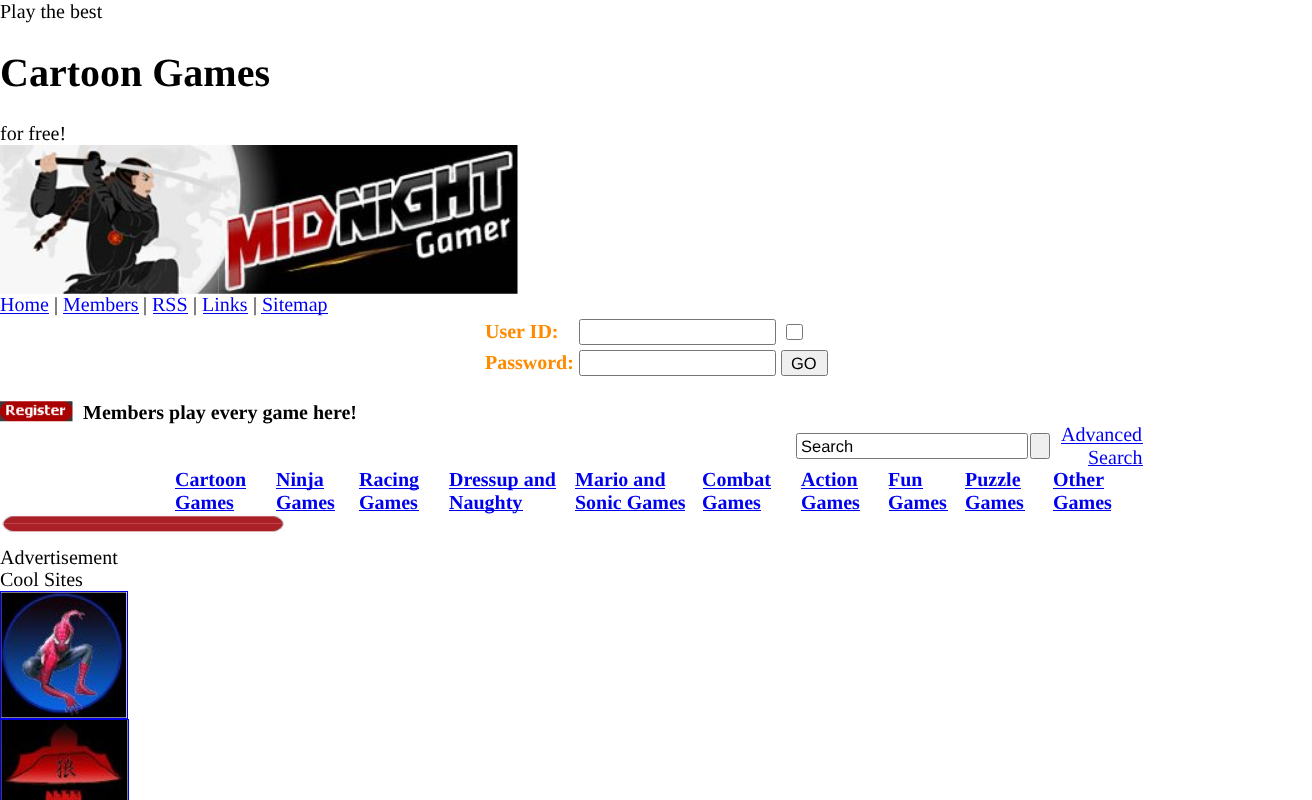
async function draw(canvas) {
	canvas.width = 1312;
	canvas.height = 800;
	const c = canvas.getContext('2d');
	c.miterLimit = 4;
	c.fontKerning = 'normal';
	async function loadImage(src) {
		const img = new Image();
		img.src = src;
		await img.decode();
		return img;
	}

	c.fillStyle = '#fff';
	c.fillRect(0, 0, 1312, 800);
	c.font = '20px Liberation Serif';
	c.fillStyle = '#000';
	c.fillText('Play the best', 0, 18);
	c.font = 'bold 40px Liberation Serif';
	c.fillText('Cartoon Games', 0, 86);
	c.font = '20px Liberation Serif';
	c.fillText('for free!', 0, 140);
	c.drawImage(await loadImage('img1.png'), 0, 145, 219, 149);
	c.drawImage(await loadImage('img2.png'), 218, 145, 300, 149);
	c.fillStyle = '#00e';
	c.fillText('Home', 0, 311);
	c.fillRect(0, 313, 49, 1);
	c.fillStyle = '#000';
	c.fillText('|', 54, 311);
	c.fillStyle = '#00e';
	c.fillText('Members', 63, 311);
	c.fillRect(63, 313, 76, 1);
	c.fillStyle = '#000';
	c.fillText('|', 143, 311);
	c.fillStyle = '#00e';
	c.fillText('RSS', 152, 311);
	c.fillRect(153, 313, 35, 1);
	c.fillStyle = '#000';
	c.fillText('|', 193, 311);
	c.fillStyle = '#00e';
	c.fillText('Links', 202, 311);
	c.fillRect(203, 313, 45, 1);
	c.fillStyle = '#000';
	c.fillText('|', 253, 311);
	c.fillStyle = '#00e';
	c.fillRect(261, 313, 67, 1);
	c.fillText('Sitemap', 262, 311);
	c.font = 'bold 20px Liberation Serif';
	c.fillStyle = '#ff8a00';
	c.fillText('User ID:', 485, 338);
	c.beginPath();
	c.roundRect(579.5, 319.5, 196, 25, 2);
	c.strokeStyle = '#767676';
	c.stroke();
	c.beginPath();
	c.roundRect(786.5, 324.5, 16, 15, 2);
	c.stroke();
	c.fillText('Password:', 485, 369);
	c.beginPath();
	c.roundRect(579.5, 350.5, 196, 25, 2);
	c.stroke();
	c.fillStyle = '#efefef';
	c.beginPath();
	c.roundRect(781.5, 350.5, 46, 25, 2);
	c.fill();
	c.stroke();
	c.font = '16.5px Liberation Sans';
	c.fillStyle = '#000';
	c.fillText('GO', 791, 369);
	c.drawImage(await loadImage('img3.png'), 0, 401, 73, 21);
	c.font = 'bold 20px Liberation Serif';
	c.fillText('Members play every game here!', 83, 419);
	c.beginPath();
	c.roundRect(796.5, 433.5, 231, 25, 2);
	c.stroke();
	c.font = '16.5px Liberation Sans';
	c.fillText('Search', 801, 452);
	c.fillStyle = '#efefef';
	c.beginPath();
	c.roundRect(1030.5, 433.5, 19, 25, 2);
	c.fill();
	c.stroke();
	c.font = '20px Liberation Serif';
	c.fillStyle = '#00e';
	c.fillText('Advanced', 1061, 441);
	c.fillRect(1061, 443, 82, 1);
	c.fillText('Search', 1088, 464);
	c.fillRect(1088, 465, 55, 1);
	c.font = 'bold 20px Liberation Serif';
	c.fillText('Cartoon', 175, 486);
	c.fillRect(175, 488, 71, 1);
	c.fillText('Games', 175, 509);
	c.fillRect(175, 510, 59, 1);
	c.fillRect(276, 488, 48, 1);
	c.fillText('Ninja', 276, 486);
	c.fillText('Games', 276, 509);
	c.fillRect(276, 510, 59, 1);
	c.fillRect(359, 488, 60, 1);
	c.fillText('Racing', 359, 486);
	c.fillText('Games', 359, 509);
	c.fillRect(359, 510, 60, 1);
	c.fillRect(449, 488, 107, 1);
	c.fillText('Dressup and', 449, 486);
	c.fillRect(449, 510, 74, 1);
	c.fillText('Naughty', 449, 509);
	c.fillText('Mario and', 575, 486);
	c.fillRect(575, 488, 90, 1);
	c.fillText('Sonic Games', 575, 509);
	c.fillRect(575, 510, 110, 1);
	c.fillText('Combat', 702, 486);
	c.fillRect(703, 488, 68, 1);
	c.fillText('Games', 702, 509);
	c.fillRect(703, 510, 58, 1);
	c.fillText('Action', 801, 486);
	c.fillRect(801, 488, 57, 1);
	c.fillText('Games', 801, 509);
	c.fillRect(801, 510, 59, 1);
	c.fillText('Fun', 888, 486);
	c.fillRect(889, 488, 34, 1);
	c.fillText('Games', 888, 509);
	c.fillRect(889, 510, 59, 1);
	c.fillText('Puzzle', 965, 486);
	c.fillRect(965, 488, 56, 1);
	c.fillText('Games', 965, 509);
	c.fillRect(965, 510, 60, 1);
	c.fillText('Other', 1053, 486);
	c.fillRect(1053, 488, 51, 1);
	c.fillText('Games', 1053, 509);
	c.fillRect(1053, 510, 58, 1);
	c.drawImage(await loadImage('img4.png'), 2, 515, 282, 9);
	c.drawImage(await loadImage('img5.png'), 2, 523, 282, 10);
	c.font = '20px Liberation Serif';
	c.fillStyle = '#000';
	c.fillText('Advertisement', 0, 564);
	c.fillText('Cool Sites', 0, 586);
	c.strokeStyle = '#00e';
	c.strokeRect(0.5, 591.5, 127, 127);
	c.drawImage(await loadImage('img6.png'), 1, 592, 126, 126);
	c.strokeRect(0.5, 719.5, 128, 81);
	c.drawImage(await loadImage('img7.png'), 1, 720, 127, 80);
}

draw(document.querySelector('canvas'));
